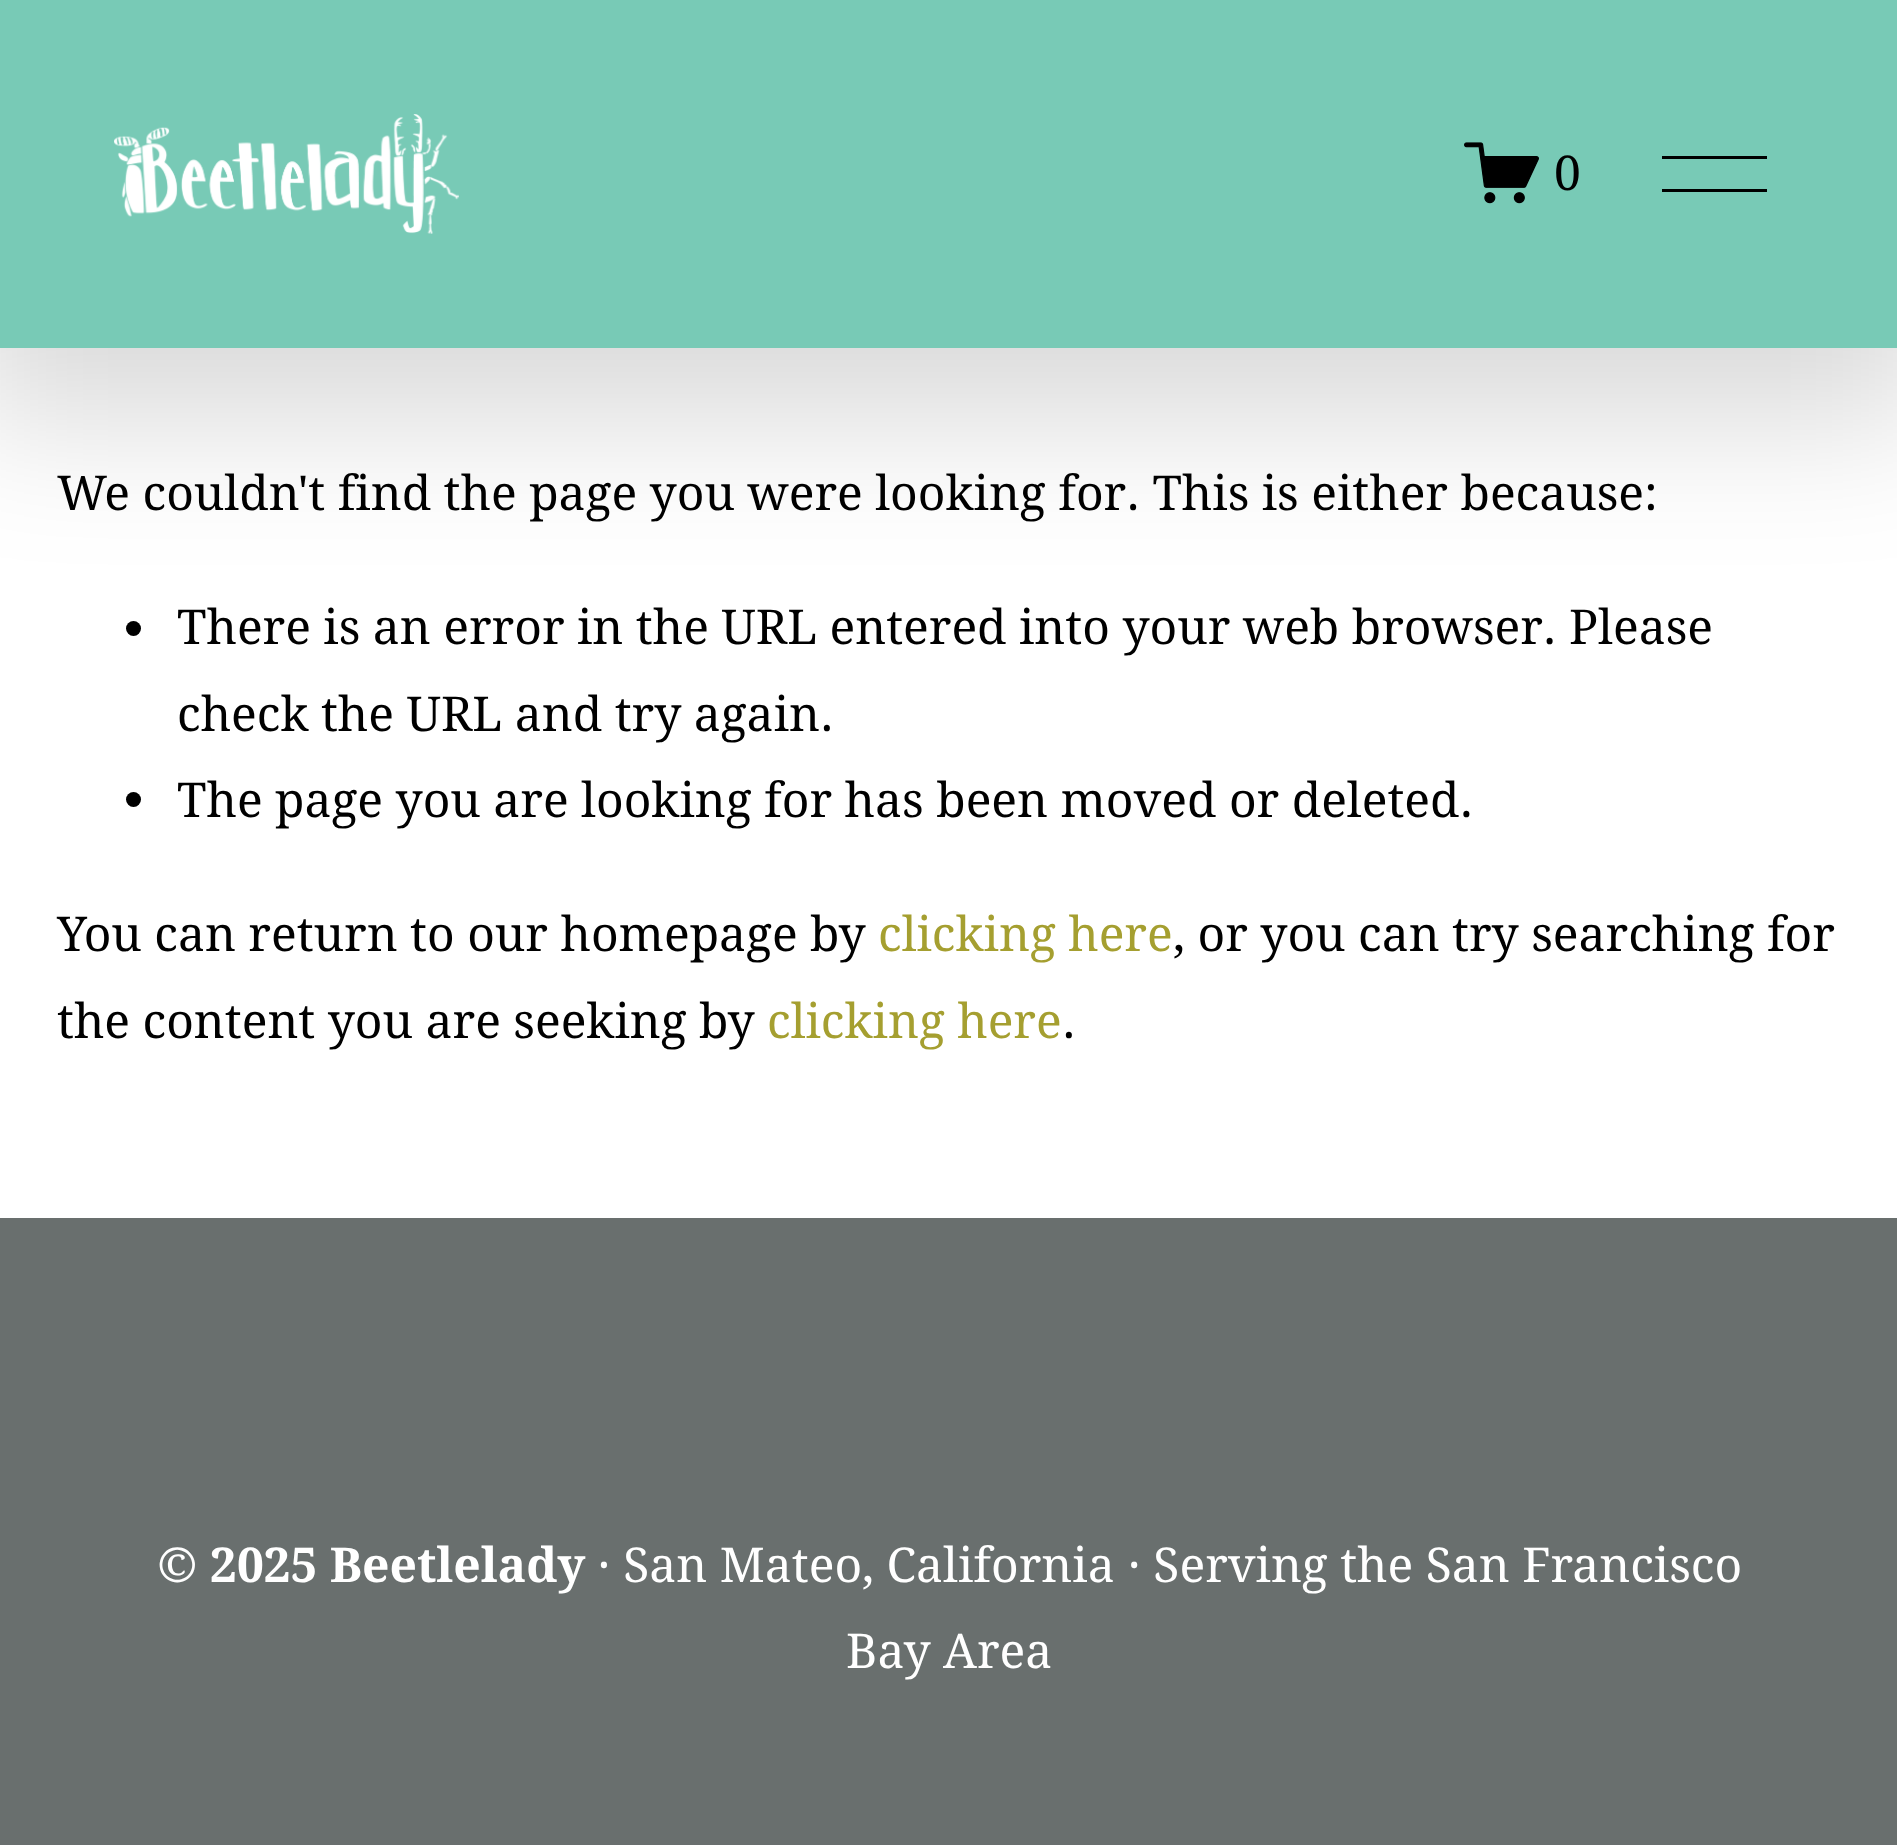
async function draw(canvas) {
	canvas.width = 1897;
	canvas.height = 1845;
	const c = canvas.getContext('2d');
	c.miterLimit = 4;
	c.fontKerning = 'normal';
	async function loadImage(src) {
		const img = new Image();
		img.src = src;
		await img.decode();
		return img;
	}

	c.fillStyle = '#fff';
	c.fillRect(0, 0, 1897, 1845);
	c.fillStyle = '#000';
	c.beginPath();
	c.arc(133.5, 628.5, 7.5, 0, 2 * Math.PI);
	c.fill();
	c.fillStyle = '#00000026';
	c.filter = 'blur(72px)';
	c.beginPath();
	c.rect(-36, 0, 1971, 420);
	c.fill();
	c.filter = 'none';
	c.fillStyle = '#78cab6';
	c.fillRect(0, 0, 1897, 348);
	c.drawImage(await loadImage('img1.png'), 114, 114, 345, 120);
	c.drawImage(await loadImage('img2.png'), 1464, 142, 75, 62);
	c.font = '48px Droid Serif';
	c.fillStyle = '#000';
	c.fillText('0', 1554, 190);
	c.fillRect(1662, 156, 105, 3);
	c.fillRect(1662, 189, 105, 3);
	for (const [text, x, y] of [
		['We couldn\'t find the page you were looking for. This is either because:', 57, 510],
		['There is an error in the URL entered into your web browser. Please', 177, 644],
		['check the URL and try again.', 177, 731],
	]) {
		c.fillText(text, x, y);
	}
	c.beginPath();
	c.arc(133.5, 799.5, 7.5, 0, 2 * Math.PI);
	c.fill();
	c.fillText('The page you are looking for has been moved or deleted.', 177, 817);
	c.fillText('You can return to our homepage by', 57, 951);
	c.fillStyle = '#a59f30';
	c.fillText('clicking here', 878, 951);
	c.fillStyle = '#000';
	c.fillText(', or you can try searching for', 1173, 951);
	c.fillText('the content you are seeking by', 57, 1038);
	c.fillStyle = '#a59f30';
	c.fillText('clicking here', 767, 1038);
	c.fillStyle = '#000';
	c.fillText('.', 1062, 1038);
	c.fillStyle = '#696f6e';
	c.fillRect(0, 1218, 1897, 627);
	c.font = 'bold 48px Droid Serif';
	c.fillStyle = '#fff';
	c.fillText('© 2025 Beetlelady', 157, 1582);
	c.font = '48px Droid Serif';
	c.fillText('· San Mateo, California · Serving the San Francisco', 597, 1582);
	c.fillText('Bay Area', 846, 1668);
}

draw(document.querySelector('canvas'));
